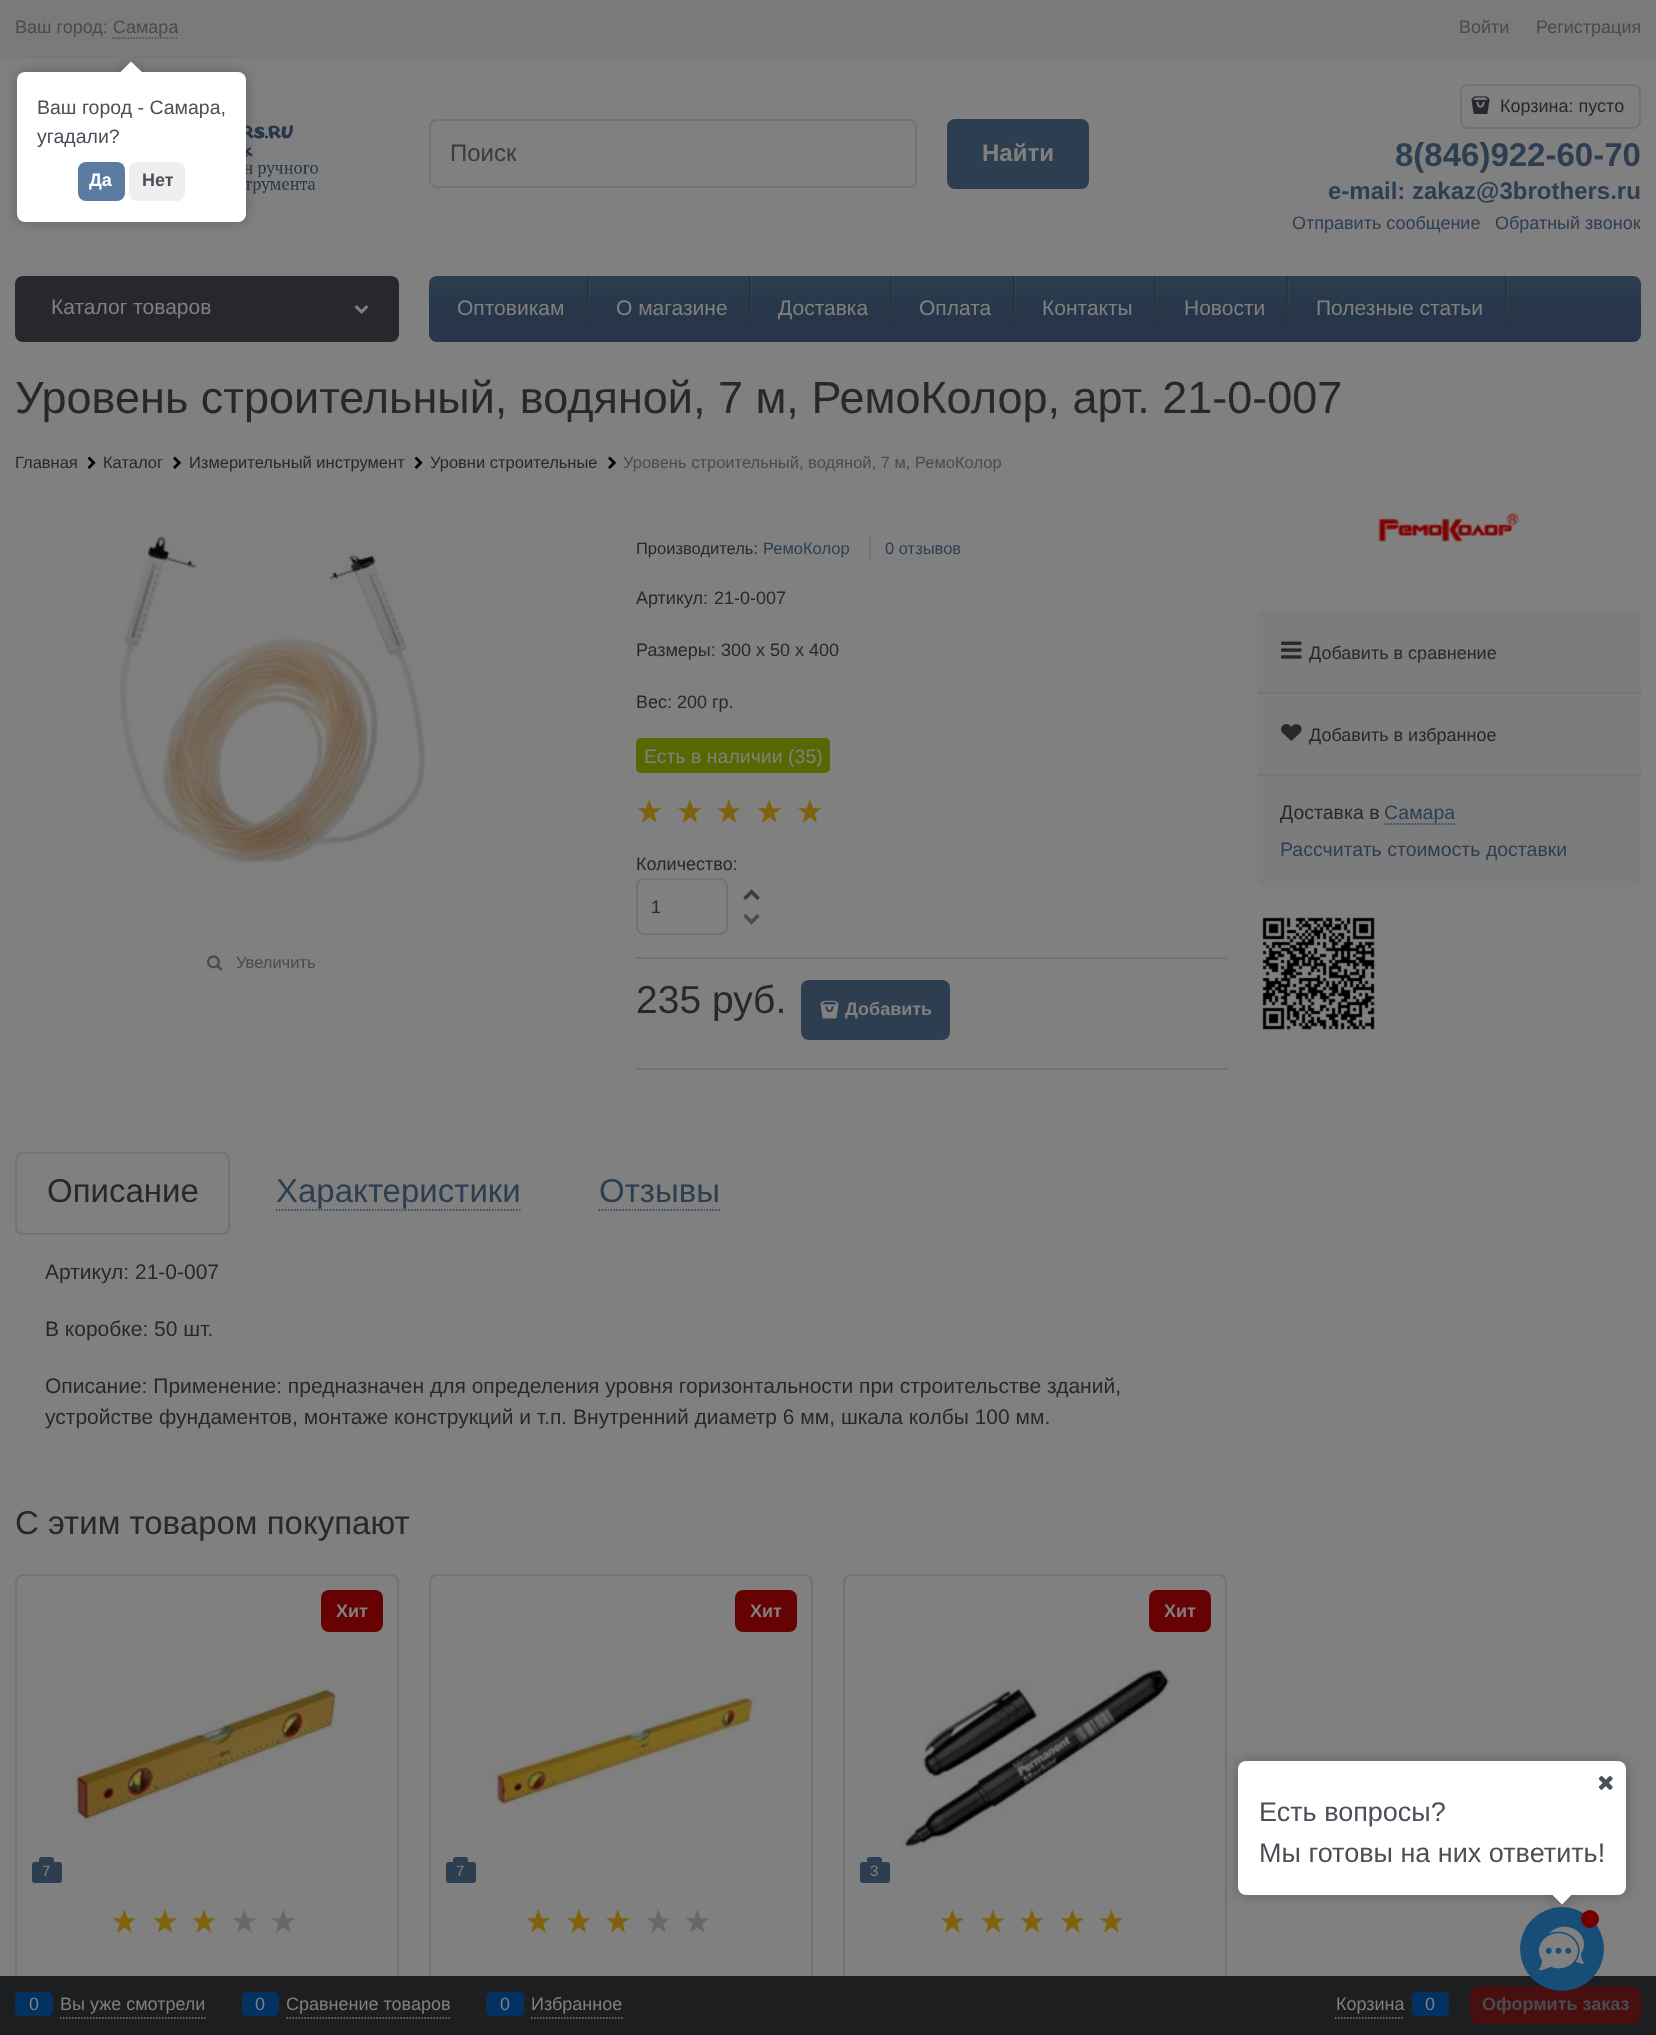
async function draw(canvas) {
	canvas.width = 1656;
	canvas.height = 2035;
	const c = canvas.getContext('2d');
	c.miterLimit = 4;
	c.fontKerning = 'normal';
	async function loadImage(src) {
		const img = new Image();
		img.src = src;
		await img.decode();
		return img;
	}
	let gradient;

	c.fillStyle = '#808080';
	c.fillRect(0, 0, 1656, 2035);
	c.fillStyle = '#7a7a7a';
	c.fillRect(0, 0, 1656, 59);
	c.font = '18px Liberation Sans';
	c.fillStyle = '#4a4b4e';
	c.fillText('Ваш город: Самара', 15, 33);
	c.beginPath();
	c.moveTo(112.5, 38);
	c.lineTo(178.5, 38);
	c.strokeStyle = '#4a4b4e';
	c.lineWidth = 1.5;
	c.setLineDash([1.5, 1.5]);
	c.stroke();
	c.fillText('Войти', 1459, 33);
	c.fillText('Регистрация', 1536, 33);
	c.drawImage(await loadImage('img1.png'), 246, 117, 72, 77);
	c.beginPath();
	c.roundRect(430, 120, 486, 67, 7);
	c.strokeStyle = '#717272';
	c.lineWidth = 2;
	c.setLineDash([]);
	c.stroke();
	c.font = '24px Liberation Sans';
	c.fillStyle = '#3b3b3b';
	c.fillText('Поиск', 450, 161);
	c.fillStyle = '#2d3e51';
	c.beginPath();
	c.roundRect(947, 119, 142, 70, 8);
	c.fill();
	c.font = 'bold 24px Liberation Sans';
	c.fillStyle = '#808080';
	c.fillText('Найти', 982, 161);
	c.beginPath();
	c.roundRect(1461, 85, 179, 43, 7);
	c.stroke();
	c.drawImage(await loadImage('img2.png'), 1471, 96, 19, 18);
	c.font = '18px Liberation Sans';
	c.fillStyle = '#26282c';
	c.fillText('Корзина: пусто', 1500, 112);
	c.font = 'bold 33px Liberation Sans';
	c.fillStyle = '#2d3e51';
	c.fillText('8(846)922-60-70', 1395, 166);
	c.font = 'bold 24px Liberation Sans';
	c.fillText('e-mail: zakaz@3brothers.ru', 1328, 199);
	c.font = '18px Liberation Sans';
	c.fillText('Отправить сообщение', 1292, 229);
	c.fillText('Обратный звонок', 1495, 229);
	c.fillStyle = '#26282c';
	c.beginPath();
	c.roundRect(15, 276, 384, 66, 8);
	c.fill();
	c.font = '21px Liberation Sans';
	c.fillStyle = '#808080';
	c.fillText('Каталог товаров', 51, 314);
	c.drawImage(await loadImage('img3.png'), 354, 305, 15, 9);
	gradient = c.createLinearGradient(1035, 276, 1035, 342);
	gradient.addColorStop(0, '#2d3e51');
	gradient.addColorStop(0.5, '#273749');
	c.fillStyle = gradient;
	c.beginPath();
	c.roundRect(429, 276, 1212, 66, 8);
	c.fill();
	c.fillStyle = '#808080';
	c.fillText('Оптовикам', 457, 315);
	gradient = c.createLinearGradient(589, 276, 589, 342);
	gradient.addColorStop(0, '#80808024');
	gradient.addColorStop(0.72, '#80808005');
	gradient.addColorStop(1, '#80808000');
	c.fillStyle = gradient;
	c.fillRect(588, 276, 2, 47);
	gradient = c.createLinearGradient(587, 276, 587, 342);
	gradient.addColorStop(0, '#1d1d1d63');
	gradient.addColorStop(0.17, '#1d1d1d54');
	gradient.addColorStop(0.61, '#1d1d1d1f');
	gradient.addColorStop(0.96, '#1d1d1d03');
	gradient.addColorStop(0.98, '#80808003');
	gradient.addColorStop(1, '#80808000');
	c.fillStyle = gradient;
	c.fillRect(587, 276, 2, 52);
	c.fillStyle = '#808080';
	c.fillText('О магазине', 616, 315);
	gradient = c.createLinearGradient(751, 276, 751, 342);
	gradient.addColorStop(0, '#80808024');
	gradient.addColorStop(0.72, '#80808005');
	gradient.addColorStop(1, '#80808000');
	c.fillStyle = gradient;
	c.fillRect(750, 276, 2, 47);
	gradient = c.createLinearGradient(749, 276, 749, 342);
	gradient.addColorStop(0, '#1d1d1d63');
	gradient.addColorStop(0.17, '#1d1d1d54');
	gradient.addColorStop(0.61, '#1d1d1d1f');
	gradient.addColorStop(0.96, '#1d1d1d03');
	gradient.addColorStop(0.98, '#80808003');
	gradient.addColorStop(1, '#80808000');
	c.fillStyle = gradient;
	c.fillRect(749, 276, 2, 52);
	c.fillStyle = '#808080';
	c.fillText('Доставка', 778, 315);
	gradient = c.createLinearGradient(892, 276, 892, 342);
	gradient.addColorStop(0, '#80808024');
	gradient.addColorStop(0.72, '#80808005');
	gradient.addColorStop(1, '#80808000');
	c.fillStyle = gradient;
	c.fillRect(891, 276, 2, 47);
	gradient = c.createLinearGradient(890, 276, 890, 342);
	gradient.addColorStop(0, '#1d1d1d63');
	gradient.addColorStop(0.17, '#1d1d1d54');
	gradient.addColorStop(0.61, '#1d1d1d1f');
	gradient.addColorStop(0.96, '#1d1d1d03');
	gradient.addColorStop(0.98, '#80808003');
	gradient.addColorStop(1, '#80808000');
	c.fillStyle = gradient;
	c.fillRect(890, 276, 2, 52);
	c.fillStyle = '#808080';
	c.fillText('Оплата', 919, 315);
	gradient = c.createLinearGradient(1015, 276, 1015, 342);
	gradient.addColorStop(0, '#80808024');
	gradient.addColorStop(0.72, '#80808005');
	gradient.addColorStop(1, '#80808000');
	c.fillStyle = gradient;
	c.fillRect(1014, 276, 2, 47);
	gradient = c.createLinearGradient(1013, 276, 1013, 342);
	gradient.addColorStop(0, '#1d1d1d63');
	gradient.addColorStop(0.17, '#1d1d1d54');
	gradient.addColorStop(0.61, '#1d1d1d1f');
	gradient.addColorStop(0.96, '#1d1d1d03');
	gradient.addColorStop(0.98, '#80808003');
	gradient.addColorStop(1, '#80808000');
	c.fillStyle = gradient;
	c.fillRect(1013, 276, 2, 52);
	c.fillStyle = '#808080';
	c.fillText('Контакты', 1042, 315);
	gradient = c.createLinearGradient(1156, 276, 1156, 342);
	gradient.addColorStop(0, '#80808024');
	gradient.addColorStop(0.72, '#80808005');
	gradient.addColorStop(1, '#80808000');
	c.fillStyle = gradient;
	c.fillRect(1155, 276, 2, 47);
	gradient = c.createLinearGradient(1154, 276, 1154, 342);
	gradient.addColorStop(0, '#1d1d1d63');
	gradient.addColorStop(0.17, '#1d1d1d54');
	gradient.addColorStop(0.61, '#1d1d1d1f');
	gradient.addColorStop(0.96, '#1d1d1d03');
	gradient.addColorStop(0.98, '#80808003');
	gradient.addColorStop(1, '#80808000');
	c.fillStyle = gradient;
	c.fillRect(1154, 276, 2, 52);
	c.fillStyle = '#808080';
	c.fillText('Новости', 1184, 315);
	gradient = c.createLinearGradient(1288, 276, 1288, 342);
	gradient.addColorStop(0, '#80808024');
	gradient.addColorStop(0.72, '#80808005');
	gradient.addColorStop(1, '#80808000');
	c.fillStyle = gradient;
	c.fillRect(1287, 276, 2, 47);
	gradient = c.createLinearGradient(1286, 276, 1286, 342);
	gradient.addColorStop(0, '#1d1d1d63');
	gradient.addColorStop(0.17, '#1d1d1d54');
	gradient.addColorStop(0.61, '#1d1d1d1f');
	gradient.addColorStop(0.96, '#1d1d1d03');
	gradient.addColorStop(0.98, '#80808003');
	gradient.addColorStop(1, '#80808000');
	c.fillStyle = gradient;
	c.fillRect(1286, 276, 2, 52);
	c.fillStyle = '#808080';
	c.fillText('Полезные статьи', 1316, 315);
	gradient = c.createLinearGradient(1507, 276, 1507, 342);
	gradient.addColorStop(0, '#80808024');
	gradient.addColorStop(0.72, '#80808005');
	gradient.addColorStop(1, '#80808000');
	c.fillStyle = gradient;
	c.fillRect(1506, 276, 2, 47);
	gradient = c.createLinearGradient(1505, 276, 1505, 342);
	gradient.addColorStop(0, '#1d1d1d63');
	gradient.addColorStop(0.17, '#1d1d1d54');
	gradient.addColorStop(0.61, '#1d1d1d1f');
	gradient.addColorStop(0.96, '#1d1d1d03');
	gradient.addColorStop(0.98, '#80808003');
	gradient.addColorStop(1, '#80808000');
	c.fillStyle = gradient;
	c.fillRect(1505, 276, 2, 52);
	c.font = '45px Liberation Sans';
	c.fillStyle = '#26282c';
	c.fillText('Уровень строительный, водяной, 7 м, РемоКолор, арт. 21-0-007', 15, 413);
	c.font = '16.5px Liberation Sans';
	c.fillText('Главная', 15, 468);
	c.drawImage(await loadImage('img4.png'), 87, 456, 9, 13);
	c.fillText('Каталог', 103, 468);
	c.drawImage(await loadImage('img5.png'), 173, 456, 8, 13);
	c.fillText('Измерительный инструмент', 189, 468);
	c.drawImage(await loadImage('img4.png'), 414, 456, 9, 13);
	c.fillText('Уровни строительные', 430, 468);
	c.drawImage(await loadImage('img5.png'), 608, 456, 8, 13);
	c.fillStyle = '#4a4b4e';
	c.fillText('Уровень строительный, водяной, 7 м, РемоКолор', 623, 468);
	c.drawImage(await loadImage('img6.png'), 117, 536, 309, 331);
	c.drawImage(await loadImage('img7.png'), 207, 955, 16, 16);
	c.fillText('Увеличить', 236, 968);
	c.fillStyle = '#26282c';
	c.fillText('Производитель:', 636, 554);
	c.fillStyle = '#2d3e51';
	c.fillText('РемоКолор', 763, 554);
	c.fillStyle = '#717272';
	c.fillRect(869, 536, 2, 25);
	c.fillStyle = '#2d3e51';
	c.fillText('0 отзывов', 885, 554);
	c.font = '18px Liberation Sans';
	c.fillStyle = '#26282c';
	for (const [text, x, y] of [
		['Артикул:', 636, 604],
		['21-0-007', 714, 604],
		['Размеры:', 636, 656],
		['300 x 50 x 400', 721, 656],
		['Вес:', 636, 708],
		['200 гр.', 677, 708],
	]) {
		c.fillText(text, x, y);
	}
	c.fillStyle = '#596702';
	c.beginPath();
	c.roundRect(636, 738, 194, 35, 5);
	c.fill();
	c.font = '19.5px Liberation Sans';
	c.fillStyle = '#808080';
	c.fillText('Есть в наличии (35)', 644, 763);
	c.drawImage(await loadImage('img8.png'), 637, 799, 24, 24);
	c.drawImage(await loadImage('img9.png'), 678, 799, 24, 24);
	c.drawImage(await loadImage('img9.png'), 717, 799, 24, 24);
	c.drawImage(await loadImage('img8.png'), 757, 799, 24, 24);
	c.drawImage(await loadImage('img9.png'), 798, 799, 24, 24);
	c.font = '18px Liberation Sans';
	c.fillStyle = '#26282c';
	c.fillText('Количество:', 636, 870);
	c.beginPath();
	c.roundRect(637, 879, 90, 55, 7);
	c.stroke();
	c.fillText('1', 651, 913);
	c.drawImage(await loadImage('img10.png'), 743, 889, 17, 11);
	c.drawImage(await loadImage('img11.png'), 743, 914, 17, 11);
	c.fillStyle = '#717272';
	c.fillRect(636, 957, 591, 2);
	c.fillRect(636, 1068, 591, 2);
	c.font = '39px Liberation Sans';
	c.fillStyle = '#26282c';
	c.fillText('235 руб.', 636, 1013);
	c.fillStyle = '#2d3e51';
	c.beginPath();
	c.roundRect(801, 980, 149, 60, 8);
	c.fill();
	c.drawImage(await loadImage('img12.png'), 820, 1000, 19, 19);
	c.font = 'bold 18px Liberation Sans';
	c.fillStyle = '#808080';
	c.fillText('Добавить', 845, 1015);
	c.beginPath();
	c.roundRect(16, 1153, 213, 81, 7);
	c.stroke();
	c.font = '33px Liberation Sans';
	c.fillStyle = '#26282c';
	c.fillText('Описание', 47, 1202);
	c.beginPath();
	c.moveTo(276, 1210);
	c.lineTo(520.5, 1210);
	c.strokeStyle = '#2d3e51';
	c.lineWidth = 1.5;
	c.setLineDash([1.5, 1.5]);
	c.stroke();
	c.fillStyle = '#2d3e51';
	c.fillText('Характеристики', 276, 1202);
	c.beginPath();
	c.moveTo(598.5, 1210);
	c.lineTo(720, 1210);
	c.stroke();
	c.fillText('Отзывы', 599, 1202);
	c.font = '21px Liberation Sans';
	c.fillStyle = '#26282c';
	for (const [text, x, y] of [
		['Артикул: 21-0-007', 45, 1279],
		['В коробке: 50 шт.', 45, 1336],
		['Описание: Применение: предназначен для определения уровня горизонтальности при строительстве зданий,', 45, 1393],
		['устройстве фундаментов, монтаже конструкций и т.п. Внутренний диаметр 6 мм, шкала колбы 100 мм.', 45, 1424],
	]) {
		c.fillText(text, x, y);
	}
	c.font = '33px Liberation Sans';
	c.fillText('С этим товаром покупают', 15, 1534);
	c.beginPath();
	c.roundRect(16, 1575, 382, 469, 7);
	c.strokeStyle = '#717272';
	c.lineWidth = 2;
	c.setLineDash([]);
	c.stroke();
	c.fillStyle = '#670202';
	c.beginPath();
	c.roundRect(321, 1590, 62, 42, 8);
	c.fill();
	c.font = 'bold 18px Liberation Sans';
	c.fillStyle = '#808080';
	c.fillText('Хит', 336, 1617);
	c.drawImage(await loadImage('img13.png'), 72, 1684, 266, 145);
	c.fillStyle = '#2d3e51';
	c.beginPath();
	c.roundRect(32, 1862, 30, 21, 3);
	c.fill();
	c.beginPath();
	c.roundRect(39, 1857, 15, 5, [3, 3, 0, 0]);
	c.fill();
	c.font = '15px Liberation Sans';
	c.fillStyle = '#808080';
	c.fillText('7', 42, 1876);
	c.drawImage(await loadImage('img8.png'), 112, 1909, 24, 24);
	c.drawImage(await loadImage('img9.png'), 153, 1909, 24, 24);
	c.drawImage(await loadImage('img9.png'), 192, 1909, 24, 24);
	c.drawImage(await loadImage('img14.png'), 233, 1909, 23, 24);
	c.drawImage(await loadImage('img14.png'), 272, 1909, 23, 24);
	c.beginPath();
	c.roundRect(430, 1575, 382, 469, 7);
	c.stroke();
	c.fillStyle = '#670202';
	c.beginPath();
	c.roundRect(735, 1590, 62, 42, 8);
	c.fill();
	c.font = 'bold 18px Liberation Sans';
	c.fillStyle = '#808080';
	c.fillText('Хит', 750, 1617);
	c.drawImage(await loadImage('img15.png'), 485, 1685, 272, 121);
	c.fillStyle = '#2d3e51';
	c.beginPath();
	c.roundRect(446, 1862, 30, 21, 3);
	c.fill();
	c.beginPath();
	c.roundRect(453, 1857, 15, 5, [3, 3, 0, 0]);
	c.fill();
	c.font = '15px Liberation Sans';
	c.fillStyle = '#808080';
	c.fillText('7', 456, 1876);
	c.drawImage(await loadImage('img8.png'), 526, 1909, 24, 24);
	c.drawImage(await loadImage('img9.png'), 567, 1909, 24, 24);
	c.drawImage(await loadImage('img9.png'), 606, 1909, 24, 24);
	c.drawImage(await loadImage('img14.png'), 647, 1909, 23, 24);
	c.drawImage(await loadImage('img14.png'), 686, 1909, 23, 24);
	c.beginPath();
	c.roundRect(844, 1575, 382, 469, 7);
	c.stroke();
	c.fillStyle = '#670202';
	c.beginPath();
	c.roundRect(1149, 1590, 62, 42, 8);
	c.fill();
	c.font = 'bold 18px Liberation Sans';
	c.fillStyle = '#808080';
	c.fillText('Хит', 1164, 1617);
	c.drawImage(await loadImage('img16.png'), 900, 1669, 270, 179);
	c.fillStyle = '#2d3e51';
	c.beginPath();
	c.roundRect(860, 1862, 30, 21, 3);
	c.fill();
	c.beginPath();
	c.roundRect(867, 1857, 15, 5, [3, 3, 0, 0]);
	c.fill();
	c.font = '15px Liberation Sans';
	c.fillStyle = '#808080';
	c.fillText('3', 870, 1876);
	c.drawImage(await loadImage('img8.png'), 940, 1909, 24, 24);
	c.drawImage(await loadImage('img9.png'), 981, 1909, 24, 24);
	c.drawImage(await loadImage('img9.png'), 1020, 1909, 24, 24);
	c.drawImage(await loadImage('img8.png'), 1060, 1909, 24, 24);
	c.drawImage(await loadImage('img8.png'), 1099, 1909, 24, 24);
	c.drawImage(await loadImage('img17.png'), 1378, 513, 142, 29);
	c.fillStyle = '#7c7c7c';
	c.beginPath();
	c.roundRect(1257, 611, 384, 276, 8);
	c.fill();
	c.fillStyle = '#757575';
	c.fillRect(1257, 692, 384, 2);
	c.drawImage(await loadImage('img18.png'), 1281, 641, 21, 18);
	c.font = '18px Liberation Sans';
	c.fillStyle = '#26282c';
	c.fillText('Добавить в сравнение', 1309, 659);
	c.fillStyle = '#757575';
	c.fillRect(1257, 774, 384, 2);
	c.drawImage(await loadImage('img19.png'), 1281, 724, 21, 17);
	c.fillStyle = '#26282c';
	c.fillText('Добавить в избранное', 1309, 741);
	c.font = '19.5px Liberation Sans';
	c.fillText('Доставка в', 1280, 819);
	c.beginPath();
	c.moveTo(1384.5, 824);
	c.lineTo(1455, 824);
	c.strokeStyle = '#2d3e51';
	c.lineWidth = 1.5;
	c.setLineDash([1.5, 1.5]);
	c.stroke();
	c.fillStyle = '#2d3e51';
	c.fillText('Самара', 1384, 819);
	c.fillText('Рассчитать стоимость доставки', 1280, 856);
	c.drawImage(await loadImage('img20.png'), 1262, 917, 113, 113);
	c.fillStyle = '#1c1e20';
	c.fillRect(0, 1976, 1656, 59);
	c.beginPath();
	c.moveTo(60, 2018);
	c.lineTo(205.5, 2018);
	c.strokeStyle = '#808080';
	c.stroke();
	c.fillStyle = '#033161';
	c.beginPath();
	c.roundRect(15, 1992, 38, 24, 5);
	c.fill();
	c.font = '18px Liberation Sans';
	c.fillStyle = '#808080';
	c.fillText('0', 29, 2010);
	c.fillText('Вы уже смотрели', 60, 2010);
	c.beginPath();
	c.moveTo(286.5, 2018);
	c.lineTo(450, 2018);
	c.stroke();
	c.fillStyle = '#033161';
	c.beginPath();
	c.roundRect(242, 1992, 37, 24, 5);
	c.fill();
	c.fillStyle = '#808080';
	c.fillText('0', 255, 2010);
	c.fillText('Сравнение товаров', 286, 2010);
	c.beginPath();
	c.moveTo(531, 2018);
	c.lineTo(622.5, 2018);
	c.stroke();
	c.fillStyle = '#033161';
	c.beginPath();
	c.roundRect(486, 1992, 38, 24, 5);
	c.fill();
	c.fillStyle = '#808080';
	c.fillText('0', 500, 2010);
	c.fillText('Избранное', 531, 2010);
	c.beginPath();
	c.moveTo(1335, 2018);
	c.lineTo(1404, 2018);
	c.stroke();
	c.fillText('Корзина', 1336, 2010);
	c.fillStyle = '#033161';
	c.beginPath();
	c.roundRect(1412, 1992, 37, 24, 5);
	c.fill();
	c.fillStyle = '#808080';
	c.fillText('0', 1425, 2010);
	c.fillStyle = '#470f10';
	c.beginPath();
	c.roundRect(1470, 1986, 171, 38, 8);
	c.fill();
	c.font = 'bold 18px Liberation Sans';
	c.fillStyle = '#4a4b4e';
	c.fillText('Оформить заказ', 1482, 2010);
	c.fillStyle = '#00000040';
	c.filter = 'blur(7px)';
	c.beginPath();
	c.roundRect(17, 72, 229, 150, 8);
	c.fill();
	c.filter = 'none';
	c.fillStyle = '#fff';
	c.beginPath();
	c.roundRect(17, 72, 229, 150, 8);
	c.fill();
	c.save();
	c.beginPath();
	c.rect(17, 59, 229, 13);
	c.clip();
	c.fillStyle = '#00000040';
	c.filter = 'blur(7px)';
	c.beginPath();
	c.rect(123, 65, 15, 15);
	c.fill();
	c.filter = 'none';
	c.restore();
	c.save();
	c.beginPath();
	c.rect(17, 59, 229, 13);
	c.clip();
	c.beginPath();
	c.moveTo(131, 61.5);
	c.lineTo(142, 72);
	c.lineTo(131, 82.5);
	c.lineTo(120.5, 72);
	c.closePath();
	c.fill();
	c.restore();
	c.font = '19.5px Liberation Sans';
	c.fillStyle = '#4b4f58';
	c.fillText('Ваш город - Самара,', 37, 114);
	c.fillText('угадали?', 37, 143);
	c.fillStyle = '#5a7ca1';
	c.beginPath();
	c.roundRect(78, 162, 47, 39, 8);
	c.fill();
	c.font = 'bold 18px Liberation Sans';
	c.fillStyle = '#fff';
	c.fillText('Да', 89, 186);
	c.fillStyle = '#efefef';
	c.beginPath();
	c.roundRect(129, 162, 56, 39, 8);
	c.fill();
	c.fillStyle = '#4b4f58';
	c.fillText('Нет', 142, 186);
	c.fillStyle = '#174e77';
	c.beginPath();
	c.arc(1562, 1949, 42, 0, 2 * Math.PI);
	c.fill();
	c.drawImage(await loadImage('img22.png'), 1539, 1926, 45, 45);
	c.fillStyle = '#720001';
	c.beginPath();
	c.arc(1590, 1919, 9, 0, 2 * Math.PI);
	c.fill();
	c.fillStyle = '#00000040';
	c.filter = 'blur(7px)';
	c.beginPath();
	c.roundRect(1238, 1761, 388, 134, 8);
	c.fill();
	c.filter = 'none';
	c.fillStyle = '#fff';
	c.beginPath();
	c.roundRect(1238, 1761, 388, 134, 8);
	c.fill();
	c.drawImage(await loadImage('img21.png'), 1598, 1775, 15, 15);
	c.font = '27px Liberation Sans';
	c.fillStyle = '#4b4f58';
	c.fillText('Есть вопросы?', 1259, 1821);
	c.fillText('Мы готовы на них ответить!', 1259, 1862);
	c.save();
	c.beginPath();
	c.rect(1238, 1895, 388, 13);
	c.clip();
	c.fillStyle = '#00000040';
	c.filter = 'blur(7px)';
	c.beginPath();
	c.rect(1554, 1887, 15, 15);
	c.fill();
	c.filter = 'none';
	c.restore();
	c.save();
	c.beginPath();
	c.rect(1238, 1895, 388, 13);
	c.clip();
	c.fillStyle = '#fff';
	c.beginPath();
	c.moveTo(1562, 1883.5);
	c.lineTo(1572.5, 1894);
	c.lineTo(1562, 1904.5);
	c.lineTo(1551.5, 1894);
	c.closePath();
	c.fill();
	c.restore();
}

draw(document.querySelector('canvas'));
